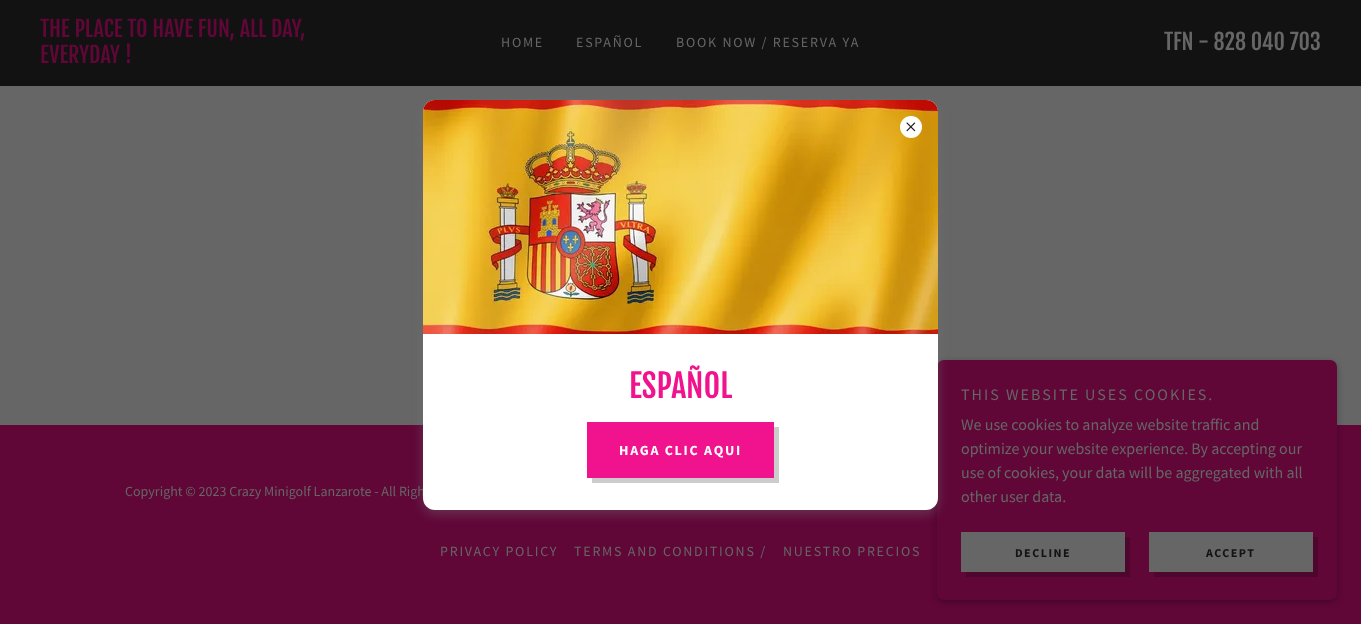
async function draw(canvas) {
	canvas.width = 1361;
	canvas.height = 624;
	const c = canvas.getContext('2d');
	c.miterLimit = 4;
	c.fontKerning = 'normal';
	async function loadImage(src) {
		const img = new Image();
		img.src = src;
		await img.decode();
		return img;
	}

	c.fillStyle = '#600738';
	c.fillRect(0, 0, 1361, 624);
	c.fillStyle = '#666';
	c.fillRect(0, 0, 1361, 425);
	c.fillStyle = '#090909e6';
	c.fillRect(0, 0, 1361, 85);
	c.font = '22px Fjalla One';
	c.fillStyle = '#610738';
	c.fillText('THE PLACE TO HAVE FUN, ALL DAY,', 40, 37);
	c.fillText('EVERYDAY !', 40, 63);
	c.letterSpacing = '1.75px';
	c.font = '14px Source Sans Pro';
	c.fillStyle = '#666';
	for (const [text, x, y] of [
		['HOME', 501, 47],
		['ESPAÑOL', 576, 47],
		['BOOK NOW / RESERVA YA', 676, 47],
	]) {
		c.fillText(text, x, y);
	}
	c.letterSpacing = '0px';
	c.font = '22px Fjalla One';
	c.fillText('TFN - 828 040 703', 1164, 50);
	c.fillStyle = '#111';
	c.fillRect(0, 85, 1361, 1);
	c.fillStyle = '#0000004d';
	c.filter = 'blur(3px)';
	c.beginPath();
	c.roundRect(937, 362, 400, 240, 7);
	c.fill();
	c.filter = 'none';
	c.fillStyle = '#600738';
	c.beginPath();
	c.roundRect(937, 360, 400, 240, 7);
	c.fill();
	c.fillStyle = '#75757566';
	c.filter = 'blur(6px)';
	c.beginPath();
	c.roundRect(423, 104, 515, 410, 12);
	c.fill();
	c.filter = 'none';
	c.font = '14px Source Sans Pro';
	c.fillStyle = '#666';
	c.fillText('Copyright © 2023 Crazy Minigolf Lanzarote - All Righ', 125, 496);
	c.fillStyle = '#fff';
	c.beginPath();
	c.roundRect(423, 100, 515, 410, 12);
	c.fill();
	c.drawImage(await loadImage('img2.png'), 423, 100, 515, 234);
	c.beginPath();
	c.arc(911, 127, 11, 0, 2 * Math.PI);
	c.fill();
	c.drawImage(await loadImage('img1.png'), 906, 122, 10, 10);
	c.font = '32px Fjalla One';
	c.fillStyle = '#f1128d';
	c.fillText('ESPAÑOL', 629, 398);
	c.fillRect(587, 422, 187, 56);
	c.fillStyle = '#ccc';
	c.beginPath();
	c.moveTo(592, 478);
	c.lineTo(592, 483);
	c.lineTo(779, 483);
	c.lineTo(779, 427);
	c.lineTo(774, 427);
	c.lineTo(774, 478);
	c.closePath();
	c.fill();
	c.letterSpacing = '1.75px';
	c.font = 'bold 14px Source Sans Pro';
	c.fillStyle = '#fff';
	c.fillText('HAGA CLIC AQUI', 619, 455);
	c.letterSpacing = '2px';
	c.font = '16px Source Sans Pro';
	c.fillStyle = '#666';
	c.fillText('THIS WEBSITE USES COOKIES.', 961, 400);
	c.letterSpacing = '0px';
	for (const [text, x, y] of [
		['We use cookies to analyze website traffic and', 961, 430],
		['optimize your website experience. By accepting our', 961, 454],
		['use of cookies, your data will be aggregated with all', 961, 478],
		['other user data.', 961, 502],
	]) {
		c.fillText(text, x, y);
	}
	c.fillRect(961, 532, 164, 40);
	c.fillStyle = '#4d062d';
	c.beginPath();
	c.moveTo(966, 572);
	c.lineTo(966, 577);
	c.lineTo(1130, 577);
	c.lineTo(1130, 537);
	c.lineTo(1125, 537);
	c.lineTo(1125, 572);
	c.closePath();
	c.fill();
	c.letterSpacing = '1.5px';
	c.font = 'bold 12px Source Sans Pro';
	c.fillStyle = '#131313';
	c.fillText('DECLINE', 1015, 557);
	c.fillStyle = '#666';
	c.fillRect(1149, 532, 164, 40);
	c.fillStyle = '#4d062d';
	c.beginPath();
	c.moveTo(1154, 572);
	c.lineTo(1154, 577);
	c.lineTo(1318, 577);
	c.lineTo(1318, 537);
	c.lineTo(1313, 537);
	c.lineTo(1313, 572);
	c.closePath();
	c.fill();
	c.fillStyle = '#131313';
	c.fillText('ACCEPT', 1206, 557);
	c.letterSpacing = '1.75px';
	c.font = '14px Source Sans Pro';
	c.fillStyle = '#666';
	for (const [text, x, y] of [
		['PRIVACY POLICY', 440, 556],
		['TERMS AND CONDITIONS /', 574, 556],
		['NUESTRO PRECIOS', 783, 556],
	]) {
		c.fillText(text, x, y);
	}
}

draw(document.querySelector('canvas'));
